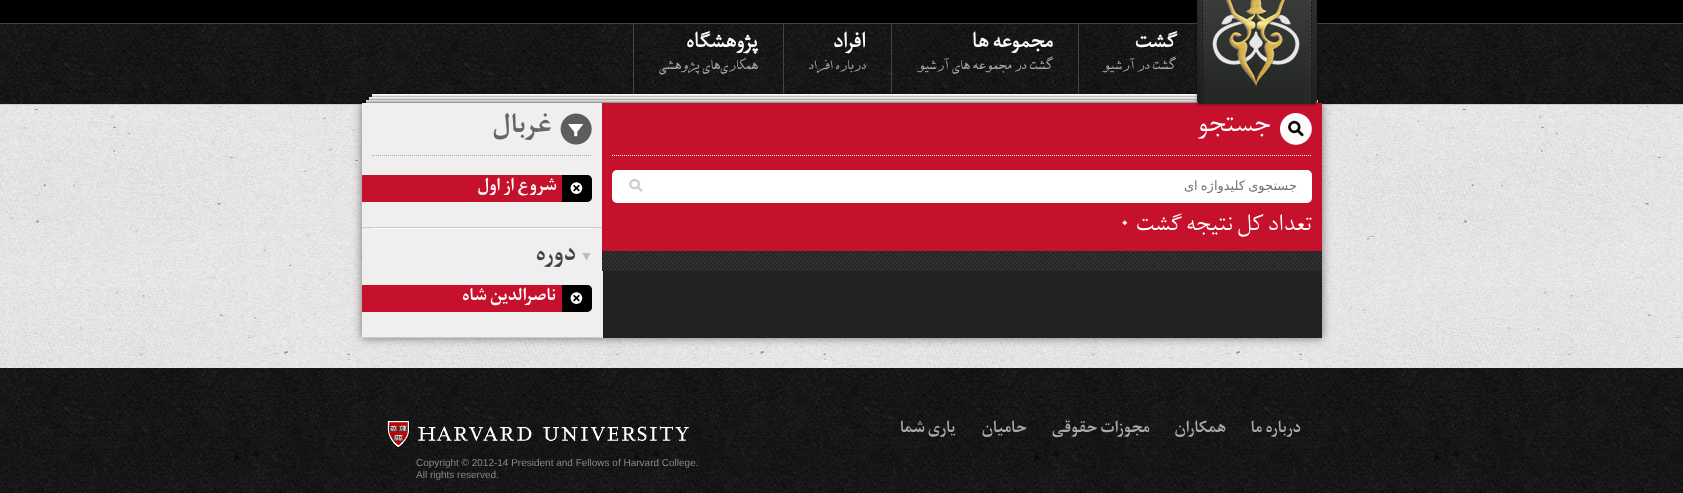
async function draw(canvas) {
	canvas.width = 1683;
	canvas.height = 493;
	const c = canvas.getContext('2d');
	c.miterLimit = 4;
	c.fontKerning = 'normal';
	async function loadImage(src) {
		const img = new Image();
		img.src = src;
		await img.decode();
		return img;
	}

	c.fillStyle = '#fff';
	c.fillRect(0, 0, 1683, 493);
	c.drawImage(await loadImage('img1.png'), 0, 105, 1683, 263);
	c.fillStyle = '#000';
	c.fillRect(0, 0, 1683, 23);
	c.fillStyle = '#444';
	c.fillRect(0, 23, 1683, 1);
	c.drawImage(await loadImage('img3.png'), 0, 24, 1683, 80);
	for (const [x, y, w, h, color] of [
		[0, 104, 1683, 1, '#cfcac4'],
		[1078, 24, 1, 70, '#444'],
		[891, 24, 1, 70, '#444'],
		[783, 24, 1, 70, '#444'],
		[633, 24, 1, 70, '#444'],
	]) {
		c.fillStyle = color;
		c.fillRect(x, y, w, h);
	}
	c.drawImage(await loadImage('img4.png'), 372, 93, 826, 10);
	c.drawImage(await loadImage('img5.png'), 1316, 97, 2, 6);
	c.drawImage(await loadImage('img6.png'), 363, 96, 9, 7);
	c.fillStyle = '#00000080';
	c.filter = 'blur(5px)';
	c.beginPath();
	c.rect(362, 103, 960, 235);
	c.fill();
	c.filter = 'none';
	c.fillStyle = '#efefef';
	c.fillRect(362, 103, 241, 235);
	c.fillStyle = '#c5112c';
	c.fillRect(602, 103, 720, 148);
	c.drawImage(await loadImage('img2.png'), 1194, 0, 126, 106);
	c.direction = 'rtl';
	c.font = 'bold 22px "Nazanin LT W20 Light"';
	c.fillStyle = '#fff';
	c.fillText('گشت', 1177, 47);
	c.font = '16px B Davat';
	c.fillStyle = '#aaa';
	c.fillText('گشت در آرشیو', 1176, 69);
	c.font = 'bold 22px "Nazanin LT W20 Light"';
	c.fillStyle = '#fff';
	c.fillText('مجموعه ها', 1053, 47);
	c.font = '16px B Davat';
	c.fillStyle = '#aaa';
	c.fillText('گشت در مجموعه های آرشیو', 1053, 69);
	c.font = 'bold 22px "Nazanin LT W20 Light"';
	c.fillStyle = '#fff';
	c.fillText('افراد', 866, 47);
	c.font = '16px B Davat';
	c.fillStyle = '#aaa';
	c.fillText('درباره افراد', 866, 69);
	c.font = 'bold 22px "Nazanin LT W20 Light"';
	c.fillStyle = '#fff';
	c.fillText('پژوهشگاه', 758, 47);
	c.font = '16px B Davat';
	c.fillStyle = '#aaa';
	c.fillText('همکاری‌های پژوهشی', 758, 69);
	c.fillStyle = '#222';
	c.fillRect(603, 271, 719, 67);
	c.drawImage(await loadImage('img7.png'), 1280, 113, 32, 32);
	c.beginPath();
	c.moveTo(612, 155.5);
	c.lineTo(1312, 155.5);
	c.strokeStyle = '#fff';
	c.setLineDash([1, 1]);
	c.stroke();
	c.font = '300 28px "Nazanin LT W20 Light"';
	c.fillStyle = '#fff';
	c.fillText('جستجو', 1271, 131);
	c.beginPath();
	c.roundRect(612, 170, 700, 33, 5);
	c.fill();
	c.save();
	c.beginPath();
	c.rect(698, 178, 600, 15);
	c.clip();
	c.wordSpacing = '-1px';
	c.font = '13px DejaVu Sans';
	c.fillStyle = '#757575';
	c.fillText('جستجوی کلیدواژه ای', 1297, 190);
	c.restore();
	c.drawImage(await loadImage('img8.png'), 629, 179, 14, 13);
	c.font = '300 24px "Nazanin LT W20 Light"';
	c.fillText('تعداد کل نتیجه گشت', 1312, 230);
	c.direction = 'ltr';
	c.fillText('۰', 1118, 230);
	c.drawImage(await loadImage('img9.png'), 602, 251, 720, 20);
	c.drawImage(await loadImage('img10.png'), 560, 113, 32, 32);
	c.beginPath();
	c.moveTo(372, 155.5);
	c.lineTo(592, 155.5);
	c.strokeStyle = '#aaa';
	c.stroke();
	c.direction = 'rtl';
	c.font = 'bold 28px "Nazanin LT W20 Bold"';
	c.fillStyle = '#666';
	c.fillText('غربال', 552, 132);
	c.fillStyle = '#ccc';
	c.fillRect(362, 227, 240, 1);
	c.fillStyle = '#c5112c';
	c.beginPath();
	c.roundRect(362, 175, 230, 27, [0, 5, 5, 0]);
	c.fill();
	c.fillStyle = '#000';
	c.beginPath();
	c.roundRect(562, 175, 30, 27, [0, 5, 5, 0]);
	c.fill();
	c.direction = 'ltr';
	c.font = '14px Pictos';
	c.fillStyle = '#fff';
	c.fillText('D', 570, 192);
	c.direction = 'rtl';
	c.font = 'bold 18px "Nazanin LT W20 Bold"';
	c.fillText('شروع از اول', 557, 190);
	c.drawImage(await loadImage('img11.png'), 582, 253, 9, 8);
	c.fillRect(372, 228, 220, 1);
	c.font = 'bold 25px "Nazanin LT W20 Bold"';
	c.fillStyle = '#444';
	c.fillText('دوره', 576, 260);
	c.fillStyle = '#ccc';
	c.fillRect(362, 337, 240, 1);
	c.fillStyle = '#c5112c';
	c.beginPath();
	c.roundRect(362, 285, 230, 27, [0, 5, 5, 0]);
	c.fill();
	c.fillStyle = '#000';
	c.beginPath();
	c.roundRect(562, 285, 30, 27, [0, 5, 5, 0]);
	c.fill();
	c.direction = 'ltr';
	c.font = '14px Pictos';
	c.fillStyle = '#fff';
	c.fillText('D', 570, 302);
	c.direction = 'rtl';
	c.font = 'bold 18px "Nazanin LT W20 Bold"';
	c.fillText('ناصرالدين شاه', 556, 300);
	c.drawImage(await loadImage('img12.png'), 0, 368, 1683, 125);
	c.font = 'bold 17px "Nazanin LT W20 Bold"';
	c.fillStyle = '#aaa';
	for (const [text, x, y] of [
		['درباره ما', 1301, 432],
		['همکاران', 1226, 432],
		['مجوزات حقوقی', 1150, 432],
		['حامیان', 1027, 432],
		['یاری شما', 956, 432],
	]) {
		c.fillText(text, x, y);
	}
	c.drawImage(await loadImage('img13.png'), 387, 421, 302, 27);
	c.direction = 'ltr';
	c.font = '10px Liberation Sans';
	c.fillStyle = '#888';
	c.fillText('Copyright © 2012-14 President and Fellows of Harvard College.', 416, 466);
	c.fillText('All rights reserved.', 416, 478);
}

draw(document.querySelector('canvas'));
